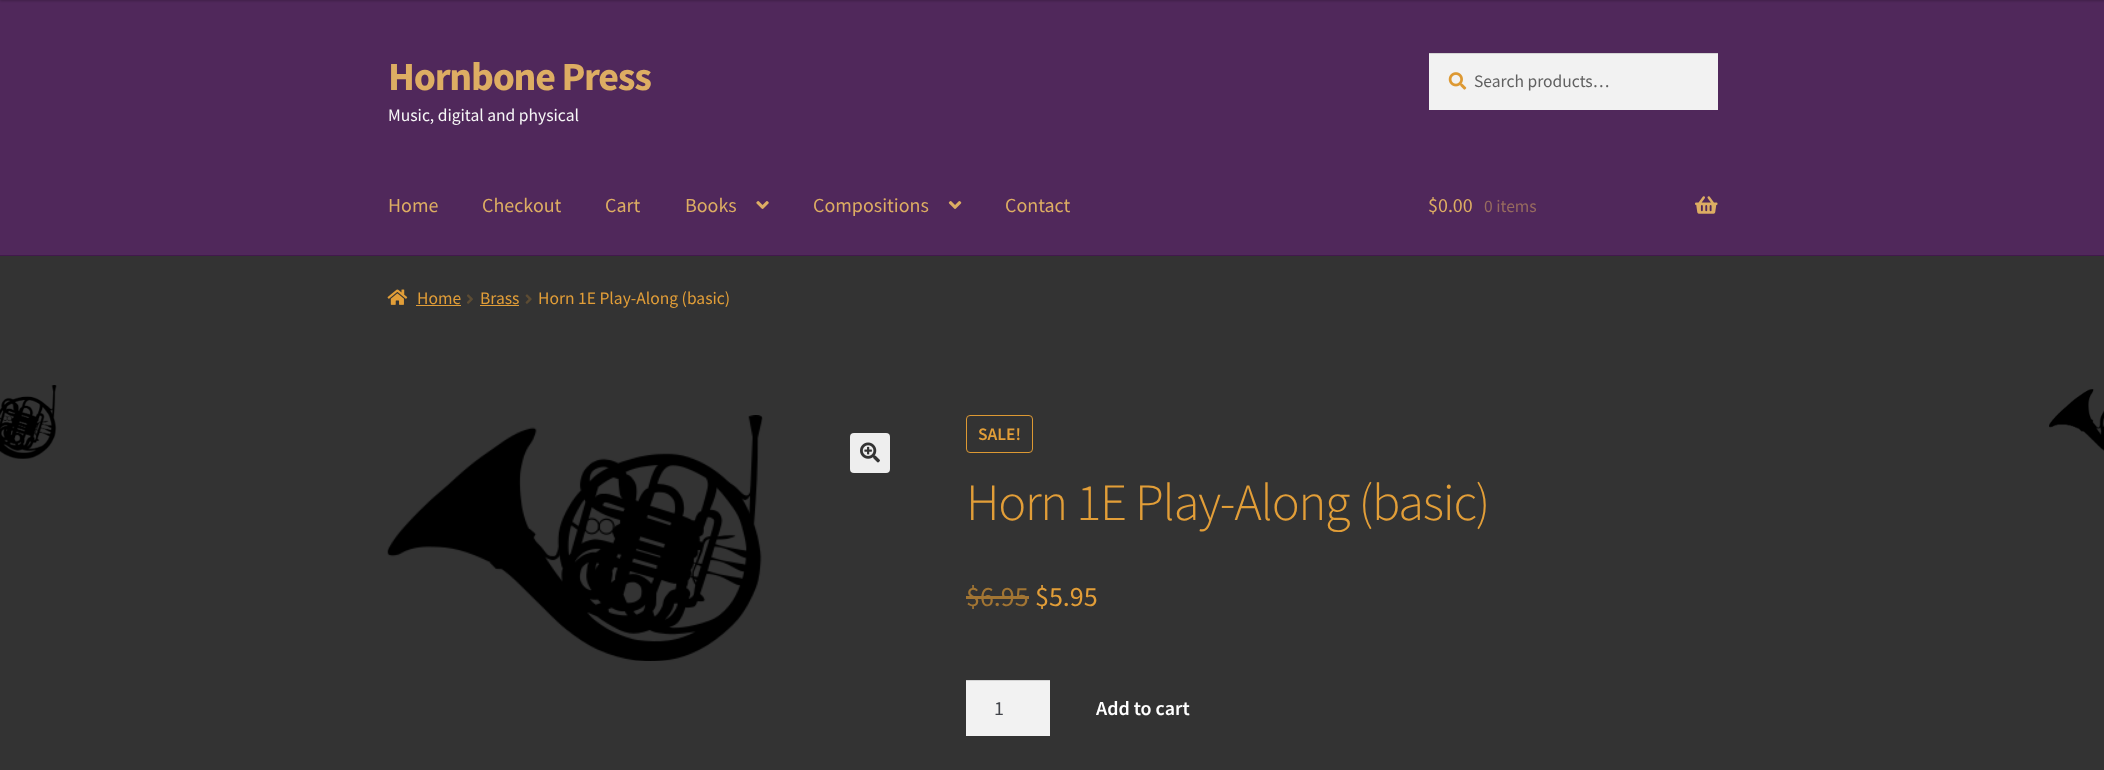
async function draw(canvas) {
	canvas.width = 2104;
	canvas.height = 770;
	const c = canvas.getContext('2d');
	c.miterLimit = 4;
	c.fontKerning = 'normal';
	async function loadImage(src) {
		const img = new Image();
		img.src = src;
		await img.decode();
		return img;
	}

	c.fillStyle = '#333';
	c.fillRect(0, 0, 2104, 770);
	c.fillStyle = '#50285b';
	c.fillRect(0, 0, 2104, 255);
	c.fillStyle = '#00000033';
	c.filter = 'blur(1px)';
	c.beginPath();
	c.rect(0, -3, 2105, 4);
	c.fill();
	c.filter = 'none';
	c.fillStyle = '#41194c';
	c.fillRect(0, 255, 2104, 1);
	c.letterSpacing = '-1.25px';
	c.font = 'bold 40px Source Sans Pro';
	c.fillStyle = '#ddad63';
	c.fillText('Hornbone Press', 388, 90);
	c.letterSpacing = '0px';
	c.font = '17.5px Source Sans Pro';
	c.fillStyle = '#f7f7f7';
	c.fillText('Music, digital and physical', 388, 121);
	c.fillStyle = '#f2f2f2';
	c.fillRect(1429, 54, 289, 56);
	c.drawImage(await loadImage('img1.png'), 1448, 72, 19, 18);
	c.fillStyle = '#d4d4d4';
	c.fillRect(1429, 53, 289, 1);
	c.fillStyle = '#616161';
	c.fillText('Search products…', 1474, 87);
	c.font = '20px Source Sans Pro';
	c.fillStyle = '#ddad63';
	for (const [text, x, y] of [
		['Home', 388, 212],
		['Checkout', 482, 212],
		['Cart', 605, 212],
		['Books', 685, 212],
	]) {
		c.fillText(text, x, y);
	}
	c.drawImage(await loadImage('img2.png'), 756, 201, 13, 8);
	c.fillText('Compositions', 813, 212);
	c.drawImage(await loadImage('img3.png'), 948, 201, 14, 8);
	c.fillText('Contact', 1005, 212);
	c.fillText('$0.00', 1428, 212);
	c.font = '17.5px Source Sans Pro';
	c.fillStyle = '#976b5f';
	c.fillText('0 items', 1484, 212);
	c.drawImage(await loadImage('img4.png'), 1695, 196, 23, 18);
	c.drawImage(await loadImage('img5.png'), 387, 289, 21, 16);
	c.fillStyle = '#e29e38';
	c.fillText('Home', 417, 304);
	c.fillRect(416, 305, 45, 1);
	c.drawImage(await loadImage('img6.png'), 467, 294, 6, 10);
	c.fillText('Brass', 480, 304);
	c.fillRect(480, 305, 39, 1);
	c.drawImage(await loadImage('img7.png'), 525, 294, 7, 10);
	c.fillText('Horn 1E Play-Along (basic)', 538, 304);
	c.drawImage(await loadImage('img8.png'), 0, 385, 57, 74);
	c.drawImage(await loadImage('img9.png'), 2049, 389, 55, 62);
	c.drawImage(await loadImage('img10.png'), 387, 415, 376, 246);
	c.fillStyle = '#eee';
	c.beginPath();
	c.roundRect(850, 433, 40, 40, 4);
	c.fill();
	c.drawImage(await loadImage('img11.png'), 860, 442, 20, 21);
	c.beginPath();
	c.roundRect(966.5, 415.5, 66, 37, 3.5);
	c.strokeStyle = '#d93';
	c.stroke();
	c.font = '600 17.5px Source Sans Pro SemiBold';
	c.fillStyle = '#e29e38';
	c.fillText('SALE!', 978, 440);
	c.letterSpacing = '-1.25px';
	c.font = '300 52.4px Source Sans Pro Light';
	c.fillText('Horn 1E Play-Along (basic)', 966, 520);
	c.letterSpacing = '0px';
	c.font = '28px Source Sans Pro';
	c.fillStyle = '#a27533';
	c.fillText('$6.95', 966, 606);
	c.fillRect(966, 596, 63, 3);
	c.fillStyle = '#e29e38';
	c.fillText('$5.95', 1035, 606);
	c.fillStyle = '#f2f2f2';
	c.fillRect(966, 681, 84, 55);
	c.fillStyle = '#d4d4d4';
	c.fillRect(966, 680, 84, 1);
	c.font = '20px Source Sans Pro';
	c.fillStyle = '#43454b';
	c.fillText('1', 994, 715);
	c.font = '600 20px Source Sans Pro SemiBold';
	c.fillStyle = '#fff';
	c.fillText('Add to cart', 1096, 715);
}

draw(document.querySelector('canvas'));
